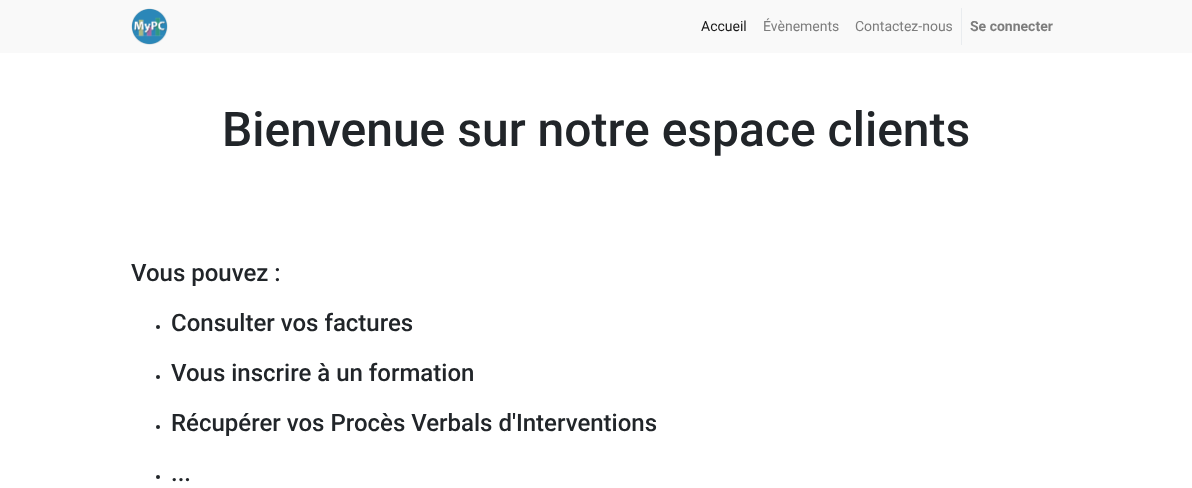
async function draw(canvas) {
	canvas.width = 1192;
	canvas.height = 488;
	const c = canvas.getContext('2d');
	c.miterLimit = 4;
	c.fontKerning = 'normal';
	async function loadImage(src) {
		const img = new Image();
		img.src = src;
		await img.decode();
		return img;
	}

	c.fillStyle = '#fff';
	c.fillRect(0, 0, 1192, 488);
	c.fillStyle = '#f9f9f9';
	c.fillRect(0, 0, 1192, 53);
	c.drawImage(await loadImage('img1.png'), 131, 8, 37, 37);
	c.font = '14px Roboto';
	c.fillStyle = '#191919';
	c.fillText('Accueil', 701, 31);
	c.fillStyle = '#7d7d7d';
	c.fillText('Évènements', 763, 31);
	c.fillText('Contactez-nous', 855, 31);
	c.fillStyle = '#e9ecef';
	c.fillRect(961, 8, 1, 37);
	c.font = 'bold 14px Roboto';
	c.fillStyle = '#7d7d7d';
	c.fillText('Se connecter', 970, 31);
	c.font = '500 48px Roboto';
	c.fillStyle = '#212529';
	c.fillText('Bienvenue sur notre espace clients', 222, 146);
	c.font = '500 24px Roboto';
	c.fillText('Vous pouvez :', 131, 281);
	c.beginPath();
	c.arc(158, 327, 2, 0, 2 * Math.PI);
	c.fill();
	c.fillText('Consulter vos factures', 171, 331);
	c.beginPath();
	c.arc(158, 377, 2, 0, 2 * Math.PI);
	c.fill();
	c.fillText('Vous inscrire à un formation', 171, 381);
	c.beginPath();
	c.arc(158, 427, 2, 0, 2 * Math.PI);
	c.fill();
	c.fillText('Récupérer vos Procès Verbals d\'Interventions', 171, 431);
	c.beginPath();
	c.arc(158, 477, 2, 0, 2 * Math.PI);
	c.fill();
	c.fillText('...', 171, 481);
}

draw(document.querySelector('canvas'));
